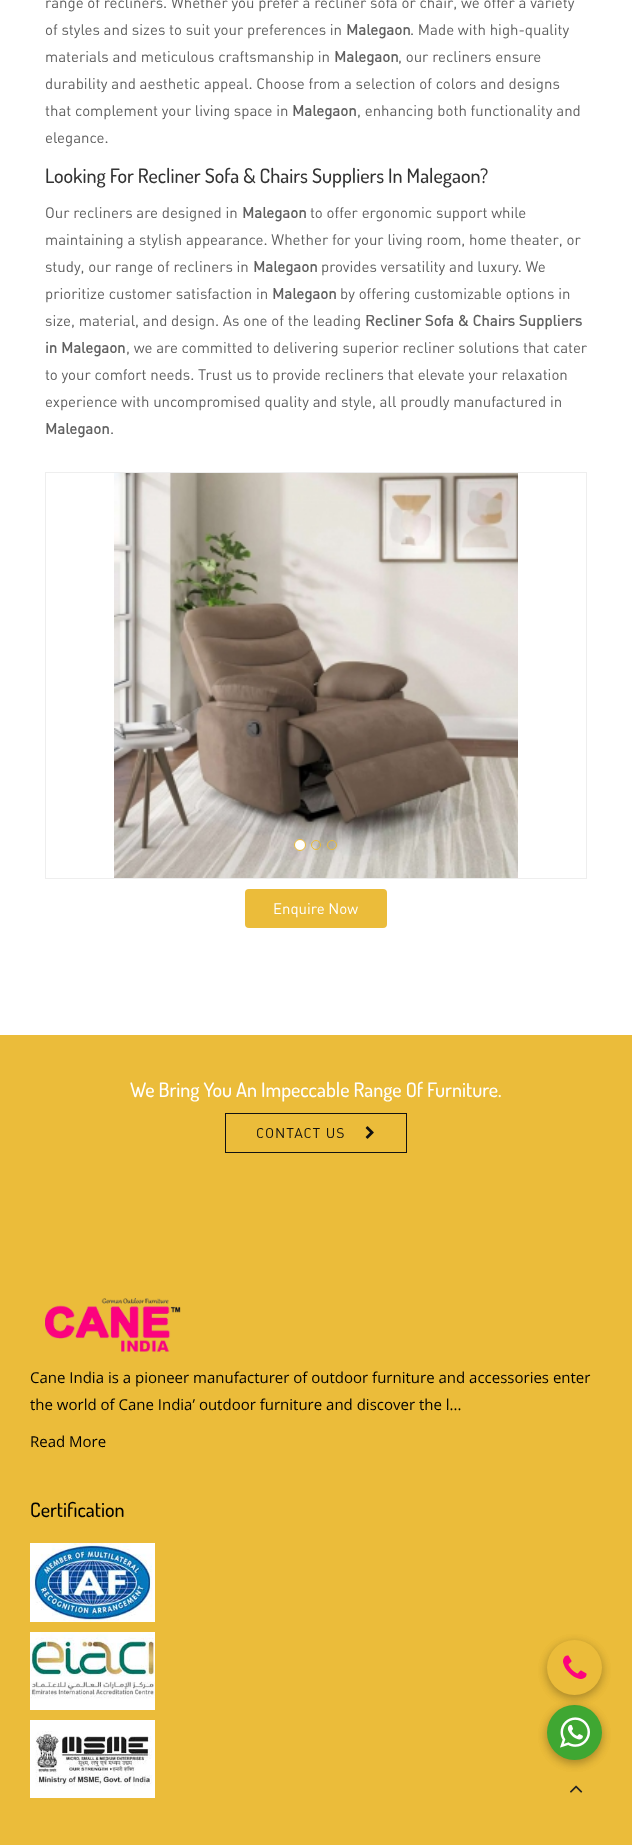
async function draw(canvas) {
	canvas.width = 632;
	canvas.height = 1845;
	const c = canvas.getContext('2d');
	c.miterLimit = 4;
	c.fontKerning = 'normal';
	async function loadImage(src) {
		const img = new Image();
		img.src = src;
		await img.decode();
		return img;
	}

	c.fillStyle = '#fff';
	c.fillRect(0, 0, 632, 1845);
	c.font = '15px DIN';
	c.fillStyle = '#606060';
	c.fillText('range of recliners. Whether you prefer a recliner sofa or chair, we offer a variety', 45, 8);
	c.fillText('of styles and sizes to suit your preferences in', 45, 35);
	c.font = 'bold 15px DIN';
	c.fillText('Malegaon', 346, 35);
	c.font = '15px DIN';
	c.fillText('. Made with high-quality', 410, 35);
	c.fillText('materials and meticulous craftsmanship in', 45, 62);
	c.font = 'bold 15px DIN';
	c.fillText('Malegaon', 334, 62);
	c.font = '15px DIN';
	for (const [text, x, y] of [
		[', our recliners ensure', 398, 62],
		['durability and aesthetic appeal. Choose from a selection of colors and designs', 45, 89],
		['that complement your living space in', 45, 116],
	]) {
		c.fillText(text, x, y);
	}
	c.font = 'bold 15px DIN';
	c.fillText('Malegaon', 292, 116);
	c.font = '15px DIN';
	c.fillText(', enhancing both functionality and', 357, 116);
	c.fillText('elegance.', 45, 143);
	c.font = '500 20px Dosis';
	c.fillStyle = '#333';
	c.fillText('Looking For Recliner Sofa & Chairs Suppliers In Malegaon?', 45, 183);
	c.font = '15px DIN';
	c.fillStyle = '#606060';
	c.fillText('Our recliners are designed in', 45, 218);
	c.font = 'bold 15px DIN';
	c.fillText('Malegaon', 242, 218);
	c.font = '15px DIN';
	for (const [text, x, y] of [
		['to offer ergonomic support while', 310, 218],
		['maintaining a stylish appearance. Whether for your living room, home theater, or', 45, 245],
		['study, our range of recliners in', 45, 272],
	]) {
		c.fillText(text, x, y);
	}
	c.font = 'bold 15px DIN';
	c.fillText('Malegaon', 253, 272);
	c.font = '15px DIN';
	c.fillText('provides versatility and luxury. We', 321, 272);
	c.fillText('prioritize customer satisfaction in', 45, 299);
	c.font = 'bold 15px DIN';
	c.fillText('Malegaon', 272, 299);
	c.font = '15px DIN';
	c.fillText('by offering customizable options in', 340, 299);
	c.fillText('size, material, and design. As one of the leading', 45, 326);
	c.font = 'bold 15px DIN';
	c.fillText('Recliner Sofa & Chairs Suppliers', 365, 326);
	c.fillText('in Malegaon', 45, 353);
	c.font = '15px DIN';
	for (const [text, x, y] of [
		[', we are committed to delivering superior recliner solutions that cater', 126, 353],
		['to your comfort needs. Trust us to provide recliners that elevate your relaxation', 45, 380],
		['experience with uncompromised quality and style, all proudly manufactured in', 45, 407],
	]) {
		c.fillText(text, x, y);
	}
	c.font = 'bold 15px DIN';
	c.fillText('Malegaon', 45, 434);
	c.font = '15px DIN';
	c.fillText('.', 110, 434);
	c.strokeStyle = '#eee';
	c.strokeRect(45.5, 472.5, 541, 406);
	c.drawImage(await loadImage('img1.png'), 114, 473, 404, 405);
	c.fillStyle = '#fff';
	c.beginPath();
	c.arc(300, 845, 5.5, 0, 2 * Math.PI);
	c.fill();
	c.strokeStyle = '#ebbc3a';
	c.stroke();
	c.beginPath();
	c.arc(316, 845, 4.5, 0, 2 * Math.PI);
	c.stroke();
	c.beginPath();
	c.arc(332, 845, 4.5, 0, 2 * Math.PI);
	c.stroke();
	c.fillStyle = '#ebbc3a';
	c.beginPath();
	c.roundRect(245, 889, 142, 39, 4);
	c.fill();
	c.fillStyle = '#fff';
	c.fillText('Enquire Now', 273, 914);
	c.fillStyle = '#ebbc3a';
	c.fillRect(0, 1035, 632, 810);
	c.font = '500 20px Dosis';
	c.fillStyle = '#fff';
	c.fillText('We Bring You An Impeccable Range Of Furniture.', 130, 1097);
	c.strokeStyle = '#111';
	c.strokeRect(225.5, 1113.5, 181, 39);
	c.letterSpacing = '1px';
	c.font = '14px DIN';
	c.fillStyle = '#111';
	c.fillText('CONTACT US', 256, 1138);
	c.drawImage(await loadImage('img2.png'), 365, 1126, 9, 13);
	c.drawImage(await loadImage('img3.png'), 45, 1298, 136, 54);
	c.letterSpacing = '0px';
	c.font = '15px Open Sans';
	c.fillStyle = '#000';
	for (const [text, x, y] of [
		['Cane India is a pioneer manufacturer of outdoor furniture and accessories enter', 30, 1383],
		['the world of Cane India’ outdoor furniture and discover the l...', 30, 1410],
		['Read More', 30, 1447],
	]) {
		c.fillText(text, x, y);
	}
	c.font = '500 20px Dosis';
	c.fillText('Certification', 30, 1517);
	c.drawImage(await loadImage('img4.png'), 30, 1543, 125, 79);
	c.drawImage(await loadImage('img5.png'), 30, 1632, 125, 78);
	c.drawImage(await loadImage('img6.png'), 30, 1720, 125, 78);
	c.drawImage(await loadImage('img7.png'), 570, 1785, 13, 8);
	c.fillStyle = '#00000029';
	c.filter = 'blur(5px)';
	c.beginPath();
	c.roundRect(547, 1708, 55, 55, 27.5);
	c.fill();
	c.filter = 'none';
	c.filter = 'blur(5px)';
	c.beginPath();
	c.roundRect(547, 1708, 55, 55, 27.5);
	c.fill();
	c.filter = 'none';
	c.fillStyle = '#3fa732';
	c.beginPath();
	c.arc(574.5, 1732.5, 27.5, 0, 2 * Math.PI);
	c.fill();
	c.fillStyle = '#00000029';
	c.filter = 'blur(5px)';
	c.beginPath();
	c.roundRect(547, 1643, 55, 55, 27.5);
	c.fill();
	c.filter = 'none';
	c.filter = 'blur(5px)';
	c.beginPath();
	c.roundRect(547, 1643, 55, 55, 27.5);
	c.fill();
	c.filter = 'none';
	c.fillStyle = '#ebbc3a';
	c.beginPath();
	c.arc(574.5, 1667.5, 27.5, 0, 2 * Math.PI);
	c.fill();
	c.drawImage(await loadImage('img8.png'), 563, 1655, 24, 24);
	c.drawImage(await loadImage('img9.png'), 560, 1717, 30, 31);
}

draw(document.querySelector('canvas'));
